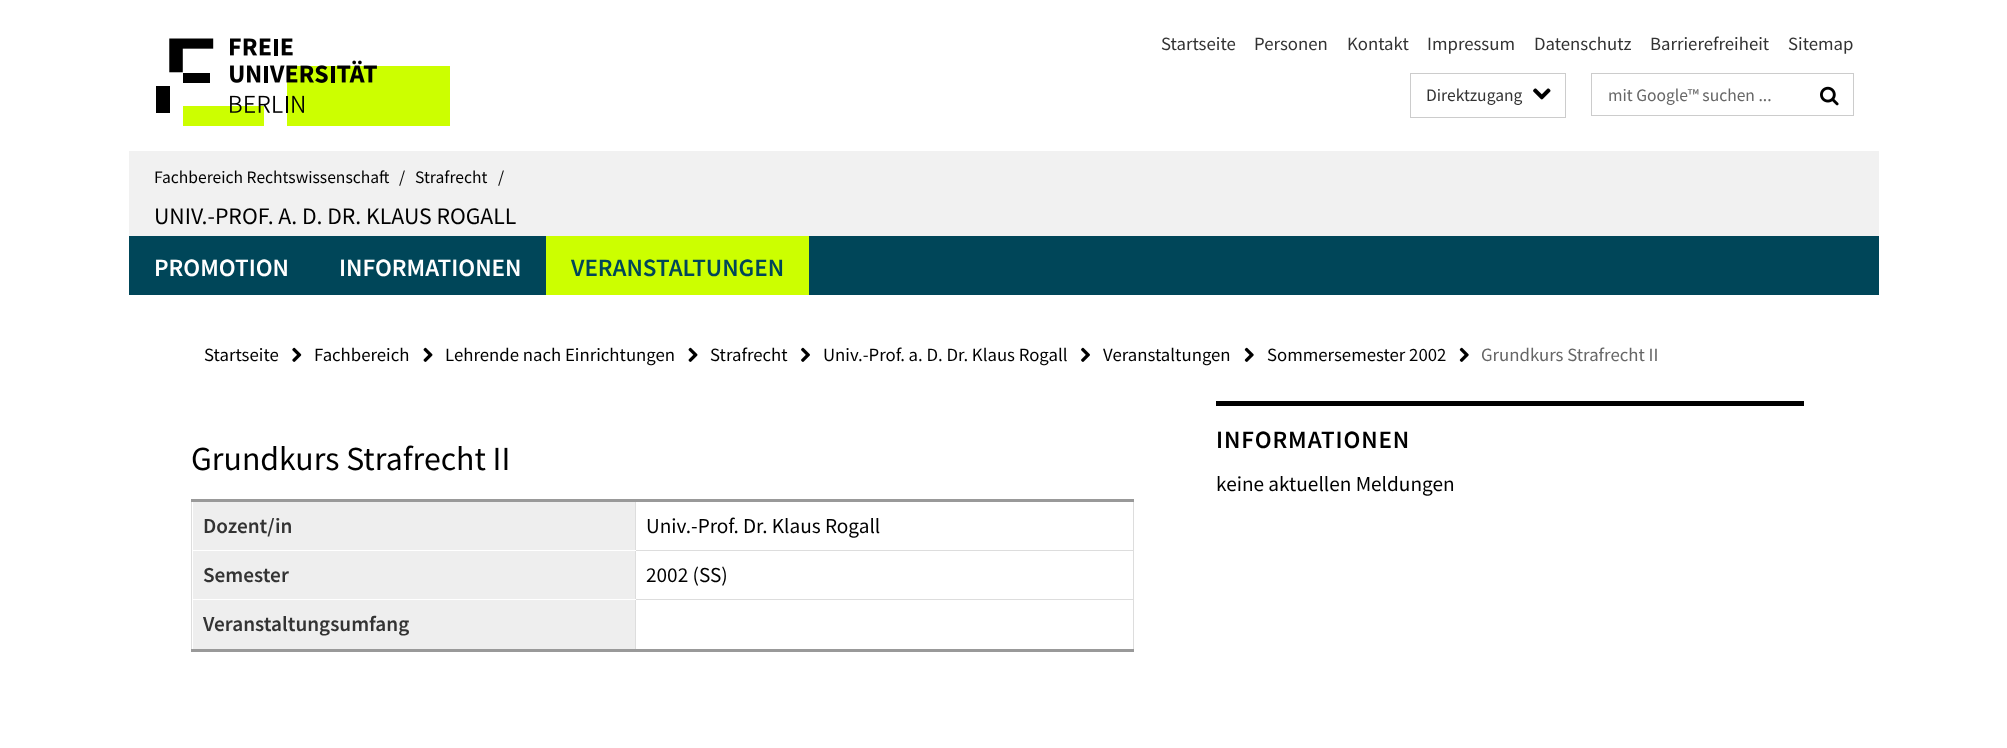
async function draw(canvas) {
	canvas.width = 2007;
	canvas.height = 748;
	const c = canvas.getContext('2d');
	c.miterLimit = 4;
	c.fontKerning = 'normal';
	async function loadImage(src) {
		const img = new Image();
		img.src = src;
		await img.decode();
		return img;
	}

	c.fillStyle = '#fff';
	c.fillRect(0, 0, 2007, 748);
	c.drawImage(await loadImage('img1.png'), 156, 38, 294, 88);
	c.font = '18.75px Source Sans Pro';
	c.fillStyle = '#333';
	for (const [text, x, y] of [
		['Startseite', 1161, 50],
		['Personen', 1254, 50],
		['Kontakt', 1347, 50],
		['Impressum', 1427, 50],
		['Datenschutz', 1534, 50],
		['Barrierefreiheit', 1650, 50],
		['Sitemap', 1788, 50],
	]) {
		c.fillText(text, x, y);
	}
	c.strokeStyle = '#ccc';
	c.strokeRect(1410.5, 73.5, 155, 44);
	c.font = '17.5px Source Sans Pro';
	c.fillText('Direktzugang', 1426, 101);
	c.drawImage(await loadImage('img2.png'), 1533, 88, 18, 12);
	c.strokeRect(1591.5, 73.5, 262, 42);
	c.fillStyle = '#666';
	c.fillText('mit Google™ suchen ...', 1608, 101);
	c.drawImage(await loadImage('img3.png'), 1820, 86, 19, 20);
	c.fillStyle = '#f1f1f1';
	c.fillRect(129, 151, 1750, 85);
	c.fillStyle = '#000';
	for (const [text, x, y] of [
		['Fachbereich Rechtswissenschaft', 154, 183],
		['/', 399, 183],
		['Strafrecht', 415, 183],
		['/', 498, 183],
	]) {
		c.fillText(text, x, y);
	}
	c.font = '23.75px Source Sans Pro';
	c.fillText('UNIV.-PROF. A. D. DR. KLAUS ROGALL', 154, 224);
	c.fillStyle = '#004659';
	c.fillRect(129, 236, 1750, 59);
	c.font = '600 25px Source Sans Pro';
	c.fillStyle = '#fff';
	c.fillText('PROMOTION', 154, 276);
	c.fillText('INFORMATIONEN', 339, 276);
	c.fillStyle = '#cf0';
	c.fillRect(546, 236, 263, 59);
	c.fillStyle = '#004659';
	c.fillText('VERANSTALTUNGEN', 571, 276);
	c.font = '18.75px Source Sans Pro';
	c.fillStyle = '#000';
	c.fillText('Startseite', 204, 361);
	c.drawImage(await loadImage('img4.png'), 292, 347, 10, 15);
	c.fillText('Fachbereich', 314, 361);
	c.drawImage(await loadImage('img5.png'), 423, 347, 10, 15);
	c.fillText('Lehrende nach Einrichtungen', 445, 361);
	c.drawImage(await loadImage('img5.png'), 688, 347, 10, 15);
	c.fillText('Strafrecht', 710, 361);
	c.drawImage(await loadImage('img6.png'), 801, 347, 9, 15);
	c.fillText('Univ.-Prof. a. D. Dr. Klaus Rogall', 823, 361);
	c.drawImage(await loadImage('img6.png'), 1081, 347, 9, 15);
	c.fillText('Veranstaltungen', 1103, 361);
	c.drawImage(await loadImage('img7.png'), 1244, 347, 10, 15);
	c.fillText('Sommersemester 2002', 1267, 361);
	c.drawImage(await loadImage('img7.png'), 1459, 347, 10, 15);
	c.fillStyle = '#666';
	c.fillText('Grundkurs Strafrecht II', 1481, 361);
	c.font = '33.75px Source Sans Pro';
	c.fillStyle = '#000';
	c.fillText('Grundkurs Strafrecht II', 191, 470);
	for (const [x, y, w, h, color] of [
		[635, 550, 499, 1, '#ddd'],
		[635, 599, 499, 1, '#ddd'],
		[635, 599, 1, 51, '#ddd'],
		[635, 500, 1, 100, '#ddd'],
		[191, 599, 1, 51, '#ddd'],
		[191, 599, 445, 1, '#fff'],
		[191, 550, 1, 50, '#ddd'],
		[191, 550, 445, 1, '#fff'],
		[191, 500, 1, 51, '#ddd'],
		[1133, 599, 1, 51, '#ddd'],
		[1133, 500, 1, 100, '#ddd'],
		[191, 499, 943, 3, '#999'],
		[191, 649, 943, 3, '#999'],
		[193, 502, 442, 48, '#eee'],
	]) {
		c.fillStyle = color;
		c.fillRect(x, y, w, h);
	}
	c.font = '600 21.25px Source Sans Pro';
	c.fillStyle = '#333';
	c.fillText('Dozent/in', 203, 533);
	c.font = '21.25px Source Sans Pro';
	c.fillStyle = '#000';
	c.fillText('Univ.-Prof. Dr. Klaus Rogall', 646, 533);
	c.fillStyle = '#eee';
	c.fillRect(193, 551, 442, 48);
	c.font = '600 21.25px Source Sans Pro';
	c.fillStyle = '#333';
	c.fillText('Semester', 203, 582);
	c.font = '21.25px Source Sans Pro';
	c.fillStyle = '#000';
	c.fillText('2002 (SS)', 646, 582);
	c.fillStyle = '#eee';
	c.fillRect(193, 600, 442, 49);
	c.font = '600 21.25px Source Sans Pro';
	c.fillStyle = '#333';
	c.fillText('Veranstaltungsumfang', 203, 631);
	c.fillStyle = '#000';
	c.fillRect(1216, 401, 588, 5);
	c.letterSpacing = '0.9px';
	c.font = '600 25px Source Sans Pro';
	c.fillText('INFORMATIONEN', 1216, 448);
	c.letterSpacing = '0px';
	c.font = '21.25px Source Sans Pro';
	c.fillText('keine aktuellen Meldungen', 1216, 491);
}

draw(document.querySelector('canvas'));
